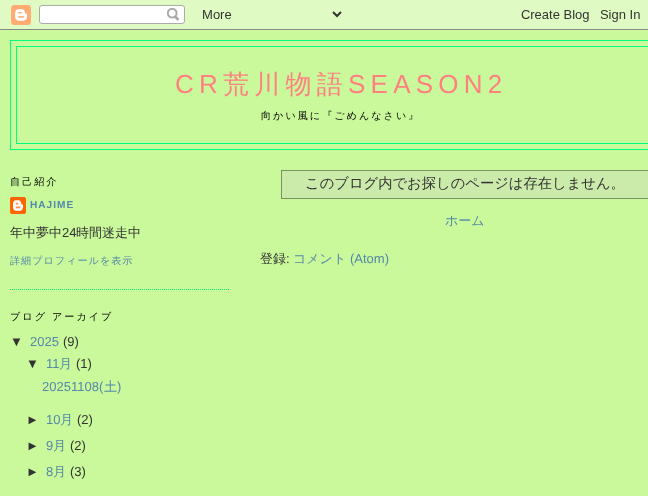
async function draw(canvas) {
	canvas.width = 648;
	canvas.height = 496;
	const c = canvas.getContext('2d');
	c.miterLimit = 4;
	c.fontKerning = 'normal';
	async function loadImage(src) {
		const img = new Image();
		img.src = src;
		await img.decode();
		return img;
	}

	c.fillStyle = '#caf99b';
	c.fillRect(0, 0, 648, 496);
	c.drawImage(await loadImage('img1.png'), 0, 0, 648, 30);
	c.strokeStyle = '#00ff80';
	c.strokeRect(10.5, 40.5, 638, 109);
	c.strokeRect(16.5, 46.5, 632, 97);
	c.letterSpacing = '5.25px';
	c.font = '26px Liberation Sans';
	c.fillStyle = '#ff8080';
	c.fillText('CR', 175, 93);
	c.font = '500 26px WenQuanYi Zen Hei';
	c.fillText('荒川物語', 223, 93);
	c.font = '26px Liberation Sans';
	c.fillText('SEASON2', 348, 93);
	c.letterSpacing = '2px';
	c.font = '500 10.1px WenQuanYi Zen Hei';
	c.fillStyle = '#000';
	c.fillText('向かい風に『ごめんなさい』', 261, 119);
	c.beginPath();
	c.moveTo(10, 289.5);
	c.lineTo(230, 289.5);
	c.setLineDash([1, 1]);
	c.stroke();
	c.fillText('自己紹介', 10, 185);
	c.drawImage(await loadImage('img2.png'), 10, 197, 16, 17);
	c.letterSpacing = '1px';
	c.font = 'bold 10.1px Liberation Sans';
	c.fillStyle = '#58a';
	c.fillText('HAJIME', 30, 208);
	c.letterSpacing = '0px';
	c.font = '500 13px WenQuanYi Zen Hei';
	c.fillStyle = '#333';
	c.fillText('年中夢中', 10, 237);
	c.font = '13px Liberation Sans';
	c.fillText('24', 62, 237);
	c.font = '500 13px WenQuanYi Zen Hei';
	c.fillText('時間迷走中', 76, 237);
	c.letterSpacing = '1px';
	c.font = '500 10.1px WenQuanYi Zen Hei';
	c.fillStyle = '#58a';
	c.fillText('詳細プロフィールを表示', 10, 264);
	c.letterSpacing = '2px';
	c.fillStyle = '#000';
	c.fillText('ブログ アーカイブ', 10, 320);
	c.letterSpacing = '0px';
	c.font = '13px Liberation Sans';
	c.fillStyle = '#333';
	c.fillText('▼', 10, 346);
	c.fillStyle = '#58a';
	c.fillText('2025', 30, 346);
	c.fillStyle = '#333';
	c.fillText('(9)', 63, 346);
	c.fillText('▼', 26, 368);
	c.fillStyle = '#58a';
	c.fillText('11', 46, 368);
	c.font = '500 13px WenQuanYi Zen Hei';
	c.fillText('月', 59, 368);
	c.font = '13px Liberation Sans';
	c.fillStyle = '#333';
	c.fillText('(1)', 76, 368);
	c.fillStyle = '#58a';
	c.fillText('20251108(', 42, 391);
	c.font = '500 13px WenQuanYi Zen Hei';
	c.fillText('土', 104, 391);
	c.font = '13px Liberation Sans';
	c.fillText(')', 117, 391);
	c.fillStyle = '#333';
	c.fillText('►', 26, 424);
	c.fillStyle = '#58a';
	c.fillText('10', 46, 424);
	c.font = '500 13px WenQuanYi Zen Hei';
	c.fillText('月', 60, 424);
	c.font = '13px Liberation Sans';
	c.fillStyle = '#333';
	c.fillText('(2)', 77, 424);
	c.fillText('►', 26, 450);
	c.fillStyle = '#58a';
	c.fillText('9', 46, 450);
	c.font = '500 13px WenQuanYi Zen Hei';
	c.fillText('月', 53, 450);
	c.font = '13px Liberation Sans';
	c.fillStyle = '#333';
	c.fillText('(2)', 70, 450);
	c.fillText('►', 26, 476);
	c.fillStyle = '#58a';
	c.fillText('8', 46, 476);
	c.font = '500 13px WenQuanYi Zen Hei';
	c.fillText('月', 53, 476);
	c.font = '13px Liberation Sans';
	c.fillStyle = '#333';
	c.fillText('(3)', 70, 476);
	c.strokeStyle = '#79955d';
	c.setLineDash([]);
	c.strokeRect(281.5, 170.5, 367, 28);
	c.fillStyle = '#cbebab';
	c.fillRect(282, 171, 366, 27);
	c.font = '500 14.3px WenQuanYi Zen Hei';
	c.fillStyle = '#333';
	c.fillText('このブログ内でお探しのページは存在しません。', 305, 188);
	c.font = '500 13px WenQuanYi Zen Hei';
	c.fillStyle = '#58a';
	c.fillText('ホーム', 445, 225);
	c.fillStyle = '#333';
	c.fillText('登録', 260, 263);
	c.font = '13px Liberation Sans';
	c.fillText(':', 286, 263);
	c.font = '500 13px WenQuanYi Zen Hei';
	c.fillStyle = '#58a';
	c.fillText('コメント', 293, 263);
	c.font = '13px Liberation Sans';
	c.fillText('(Atom)', 350, 263);
}

draw(document.querySelector('canvas'));
